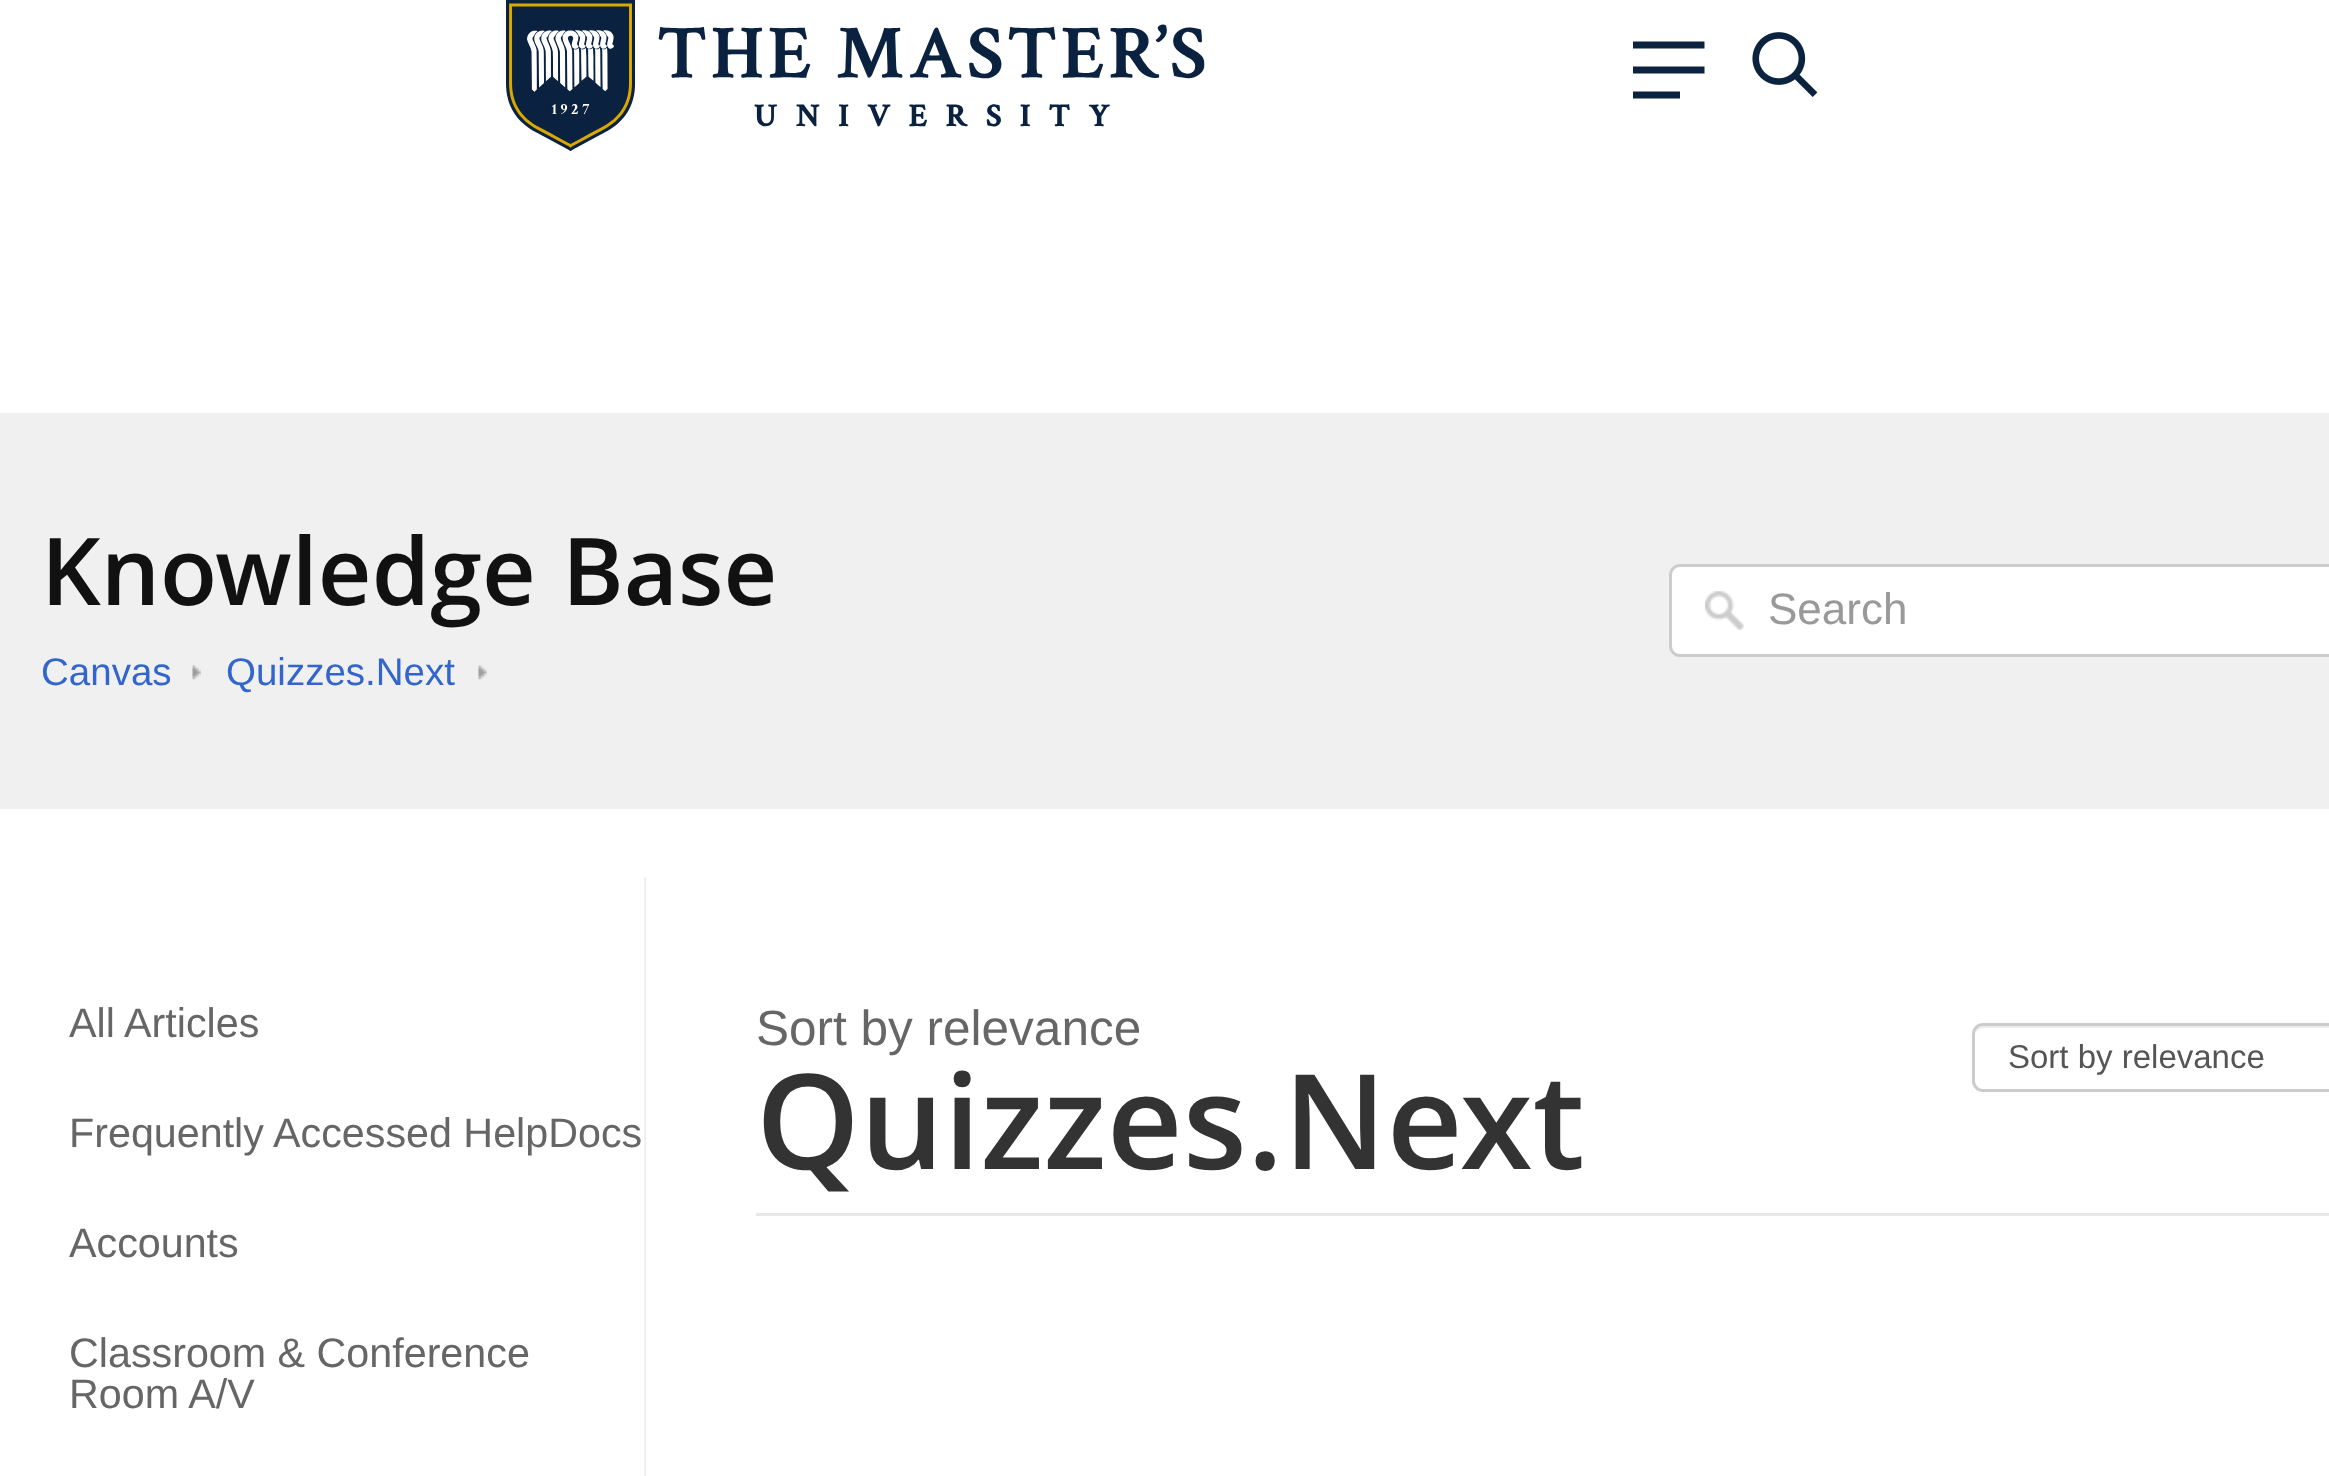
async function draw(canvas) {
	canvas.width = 2329;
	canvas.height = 1476;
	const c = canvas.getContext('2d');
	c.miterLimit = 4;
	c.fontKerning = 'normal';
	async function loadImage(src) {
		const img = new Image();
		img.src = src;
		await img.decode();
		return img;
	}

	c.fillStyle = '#fff';
	c.fillRect(0, 0, 2329, 1476);
	c.drawImage(await loadImage('img1.png'), 506, 0, 699, 151);
	c.beginPath();
	c.moveTo(1633, 45);
	c.lineTo(1704.5, 45);
	c.strokeStyle = '#0c2340';
	c.lineWidth = 7.2;
	c.stroke();
	c.drawImage(await loadImage('img2.png'), 1752, 32, 66, 65);
	c.beginPath();
	c.moveTo(1633, 70);
	c.lineTo(1704.5, 70);
	c.stroke();
	c.beginPath();
	c.moveTo(1633, 95);
	c.lineTo(1680, 95);
	c.stroke();
	c.fillStyle = '#f0f0f0';
	c.fillRect(0, 413, 2329, 396);
	c.wordSpacing = '2px';
	c.font = '600 93.5px Open Sans';
	c.fillStyle = '#111';
	c.fillText('Knowledge Base', 41, 605);
	c.wordSpacing = '0px';
	c.font = '38.5px Liberation Sans';
	c.fillStyle = '#36c';
	c.fillText('Canvas', 41, 685);
	c.drawImage(await loadImage('img3.png'), 192, 665, 9, 15);
	c.fillText('Quizzes.Next', 226, 685);
	c.drawImage(await loadImage('img3.png'), 478, 665, 9, 15);
	c.fillStyle = '#fff';
	c.beginPath();
	c.roundRect(1669, 564, 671, 93, 11);
	c.fill();
	c.drawImage(await loadImage('img4.png'), 1705, 591, 39, 39);
	c.beginPath();
	c.roundRect(1670.5, 565.5, 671, 90, 9.5);
	c.strokeStyle = '#00000033';
	c.lineWidth = 3;
	c.stroke();
	c.font = '44px Liberation Sans';
	c.fillStyle = '#999';
	c.fillText('Search', 1768, 624);
	c.fillStyle = '#f0f0f0';
	c.fillRect(644, 877, 2, 599);
	c.font = '41.25px Liberation Sans';
	c.fillStyle = '#666';
	for (const [text, x, y] of [
		['All Articles', 69, 1037],
		['Frequently Accessed HelpDocs', 69, 1147],
		['Accounts', 69, 1257],
		['Classroom & Conference', 69, 1367],
		['Room A/V', 69, 1408],
	]) {
		c.fillText(text, x, y);
	}
	c.fillStyle = '#e8e8e8';
	c.fillRect(756, 1213, 1573, 3);
	c.font = '49.5px Liberation Sans';
	c.fillStyle = '#666';
	c.fillText('Sort by relevance', 756, 1045);
	c.fillStyle = '#ececec';
	c.beginPath();
	c.moveTo(1983, 1028);
	c.lineTo(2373, 1028);
	c.bezierCurveTo(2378, 1028, 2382, 1032, 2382, 1037);
	c.lineTo(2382, 1034);
	c.bezierCurveTo(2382, 1030, 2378, 1026, 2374, 1026);
	c.lineTo(1983, 1026);
	c.bezierCurveTo(1979, 1026, 1976, 1029, 1975, 1033);
	c.bezierCurveTo(1977, 1030, 1980, 1028, 1983, 1028);
	c.closePath();
	c.fill();
	c.beginPath();
	c.roundRect(1973.5, 1024.5, 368, 66, 9.5);
	c.strokeStyle = '#ccc';
	c.stroke();
	c.font = '33px Liberation Sans';
	c.fillStyle = '#555';
	c.fillText('Sort by relevance', 2008, 1068);
	c.font = '600 132px Open Sans';
	c.fillStyle = '#333';
	c.fillText('Quizzes.Next', 756, 1169);
}

draw(document.querySelector('canvas'));
